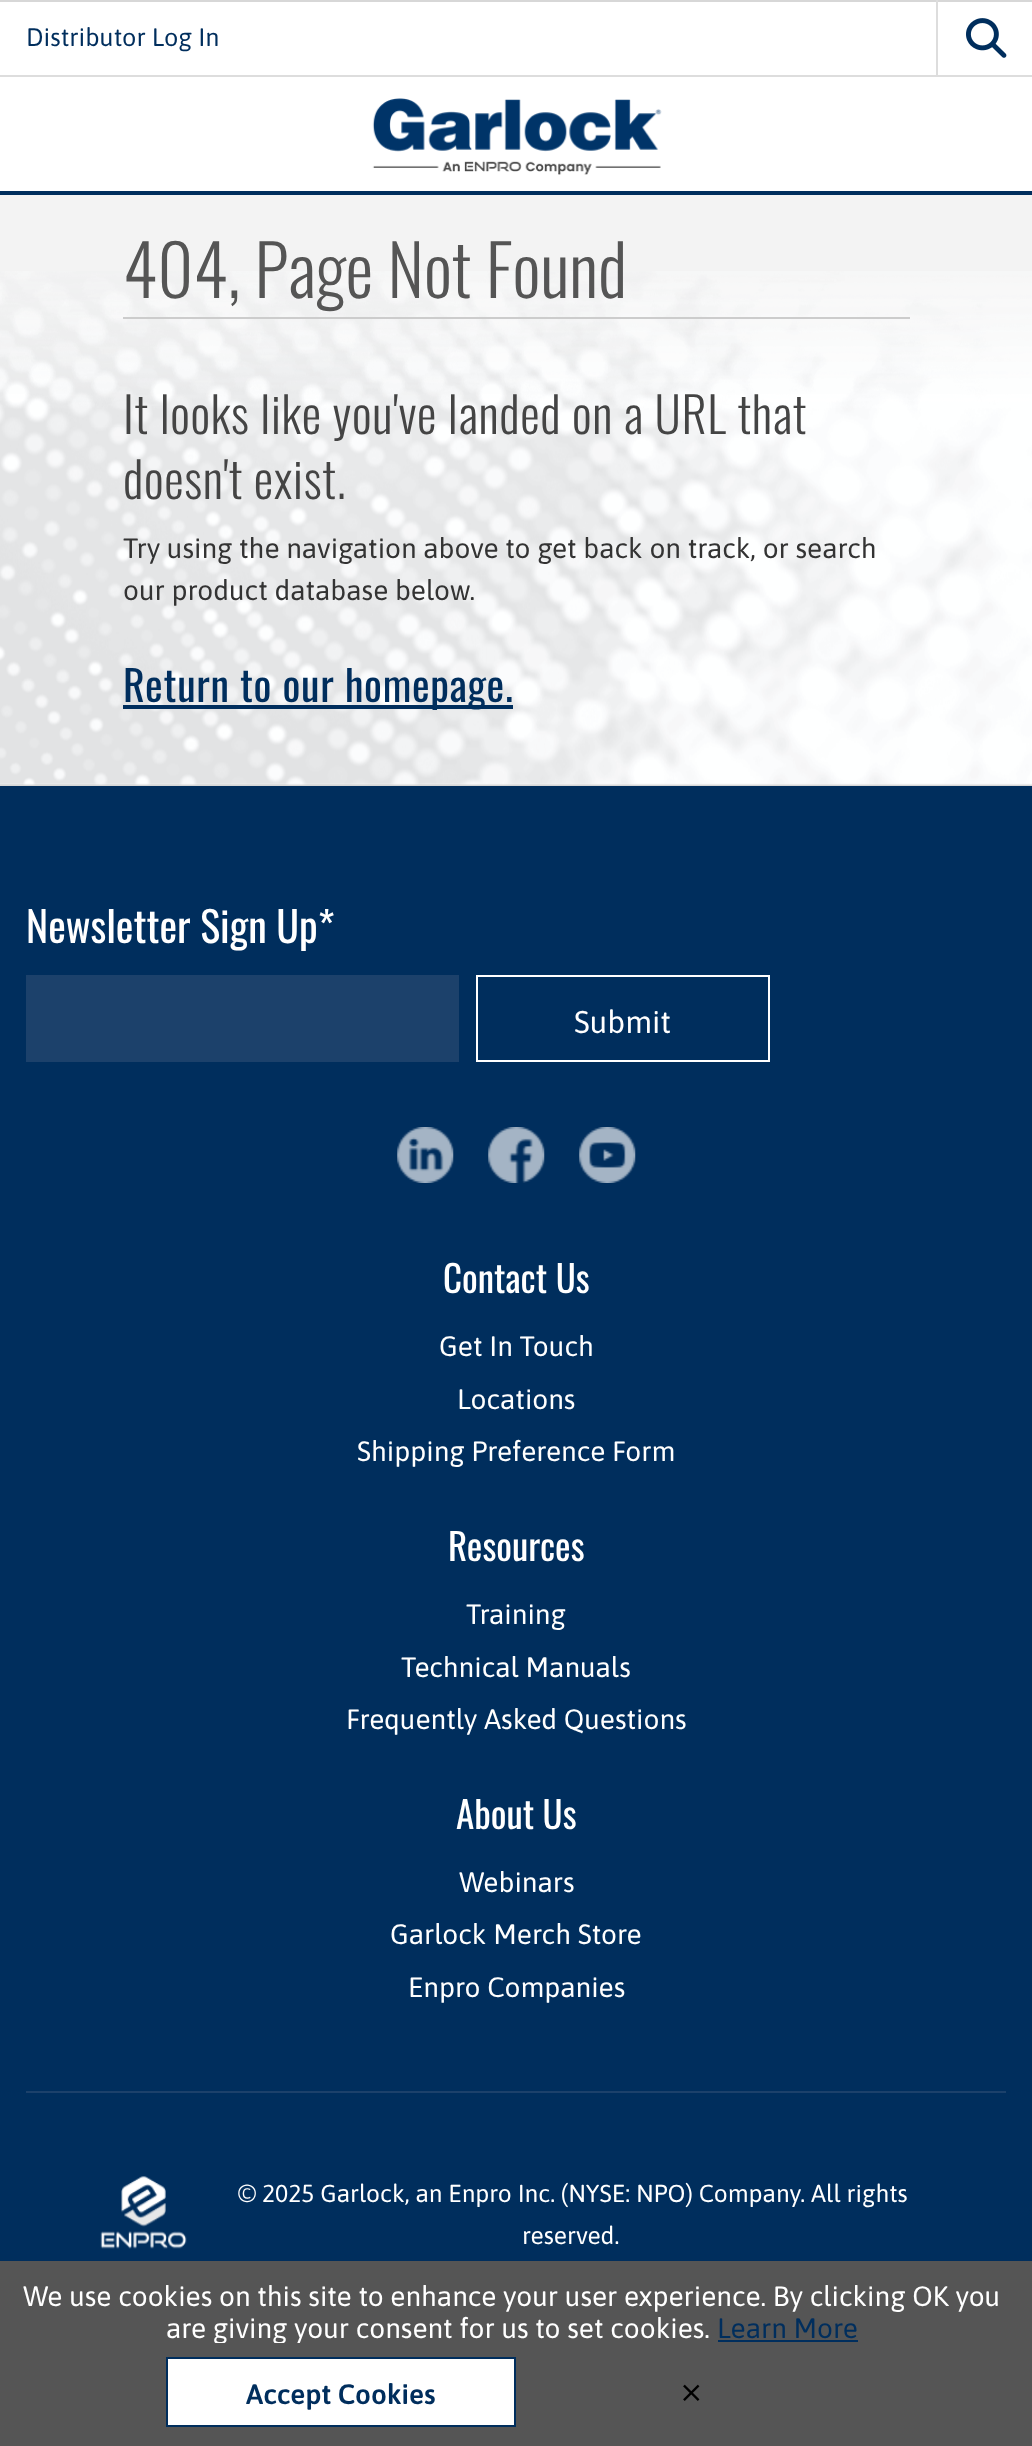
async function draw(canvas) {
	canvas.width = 1032;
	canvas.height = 2446;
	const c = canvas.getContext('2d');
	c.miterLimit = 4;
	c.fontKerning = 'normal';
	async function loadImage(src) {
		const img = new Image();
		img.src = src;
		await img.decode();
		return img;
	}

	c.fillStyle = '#fff';
	c.fillRect(0, 0, 1032, 2446);
	c.fillStyle = '#d7d7d7';
	c.fillRect(0, 0, 1032, 2);
	c.fillStyle = '#ddd';
	c.fillRect(0, 75, 1032, 2);
	c.font = '25.25px Asap';
	c.fillStyle = '#002e5d';
	c.fillText('Distributor Log In', 26, 46);
	c.fillStyle = '#ddd';
	c.fillRect(936, 0, 2, 75);
	c.drawImage(await loadImage('img1.png'), 966, 18, 41, 40);
	c.fillStyle = '#002e5d';
	c.fillRect(0, 191, 1032, 4);
	c.drawImage(await loadImage('img2.png'), 372, 98, 290, 77);
	c.fillStyle = '#f3f3f3';
	c.fillRect(0, 195, 1032, 589);
	c.fillStyle = '#d7d7d7';
	c.fillRect(0, 784, 1032, 2);
	c.drawImage(await loadImage('img3.png'), 0, 271, 1032, 514);
	c.fillStyle = '#ccc';
	c.fillRect(123, 317, 787, 2);
	c.font = '300 70px Oswald';
	c.fillStyle = '#555';
	c.fillText('404, Page Not Found', 123, 298);
	c.letterSpacing = '0.7px';
	c.font = '300 49px Oswald';
	c.fillStyle = '#444';
	c.fillText('It looks like you\'ve landed on a URL that', 123, 434);
	c.fillText('doesn\'t exist.', 123, 499);
	c.letterSpacing = '0px';
	c.font = '28px Asap';
	c.fillStyle = '#333';
	c.fillText('Try using the navigation above to get back on track, or search', 123, 558);
	c.fillText('our product database below.', 123, 600);
	c.fillStyle = '#002e5d';
	c.fillRect(123, 705, 390, 4);
	c.letterSpacing = '0.7px';
	c.font = '42px Oswald';
	c.fillText('Return to our homepage.', 123, 702);
	c.fillRect(0, 786, 1032, 1475);
	c.letterSpacing = '0px';
	c.fillStyle = '#fff';
	c.fillText('Newsletter Sign Up*', 26, 943);
	c.fillStyle = '#1c416b';
	c.fillRect(26, 975, 433, 87);
	c.strokeStyle = '#fff';
	c.lineWidth = 2;
	c.strokeRect(477, 976, 292, 85);
	c.font = '31.5px Asap';
	c.fillStyle = '#fff';
	c.fillText('Submit', 574, 1033);
	c.drawImage(await loadImage('img4.png'), 397, 1127, 57, 56);
	c.drawImage(await loadImage('img5.png'), 488, 1127, 57, 56);
	c.drawImage(await loadImage('img6.png'), 579, 1127, 57, 56);
	c.font = '37px Oswald';
	c.fillText('Contact Us', 443, 1293);
	c.font = '28px Asap';
	for (const [text, x, y] of [
		['Get In Touch', 439, 1356],
		['Locations', 457, 1409],
		['Shipping Preference Form', 357, 1461],
	]) {
		c.fillText(text, x, y);
	}
	c.font = '37px Oswald';
	c.fillText('Resources', 448, 1561);
	c.font = '28px Asap';
	for (const [text, x, y] of [
		['Training', 466, 1624],
		['Technical Manuals', 401, 1677],
		['Frequently Asked Questions', 346, 1729],
	]) {
		c.fillText(text, x, y);
	}
	c.font = '37px Oswald';
	c.fillText('About Us', 456, 1829);
	c.font = '28px Asap';
	for (const [text, x, y] of [
		['Webinars', 459, 1892],
		['Garlock Merch Store', 390, 1944],
		['Enpro Companies', 408, 1997],
	]) {
		c.fillText(text, x, y);
	}
	c.fillStyle = '#1c416b';
	c.fillRect(26, 2091, 980, 2);
	c.drawImage(await loadImage('img7.png'), 100, 2176, 87, 73);
	c.font = '24.5px Asap';
	c.fillStyle = '#fff';
	c.fillText('© 2025 Garlock, an Enpro Inc. (NYSE: NPO) Company. All rights', 238, 2202);
	c.fillText('reserved.', 522, 2244);
	c.fillStyle = '#555';
	c.fillRect(0, 2261, 1032, 185);
	c.font = '28px Asap';
	c.fillStyle = '#fff';
	c.fillText('We use cookies on this site to enhance your user experience. By clicking OK you', 23, 2306);
	c.save();
	c.beginPath();
	c.rect(19, 2280, 994, 63);
	c.clip();
	c.fillText('are giving your consent for us to set cookies.', 166, 2338);
	c.restore();
	c.fillStyle = '#002e5d';
	c.fillText('Learn More', 717, 2338);
	c.fillRect(718, 2340, 140, 2);
	c.fillStyle = '#fff';
	c.beginPath();
	c.rect(167, 2358, 348, 68);
	c.fill();
	c.strokeStyle = '#002e5d';
	c.stroke();
	c.font = '600 28px Asap';
	c.fillStyle = '#002e5d';
	c.fillText('Accept Cookies', 246, 2404);
	c.drawImage(await loadImage('img8.png'), 683, 2384, 17, 17);
}

draw(document.querySelector('canvas'));
